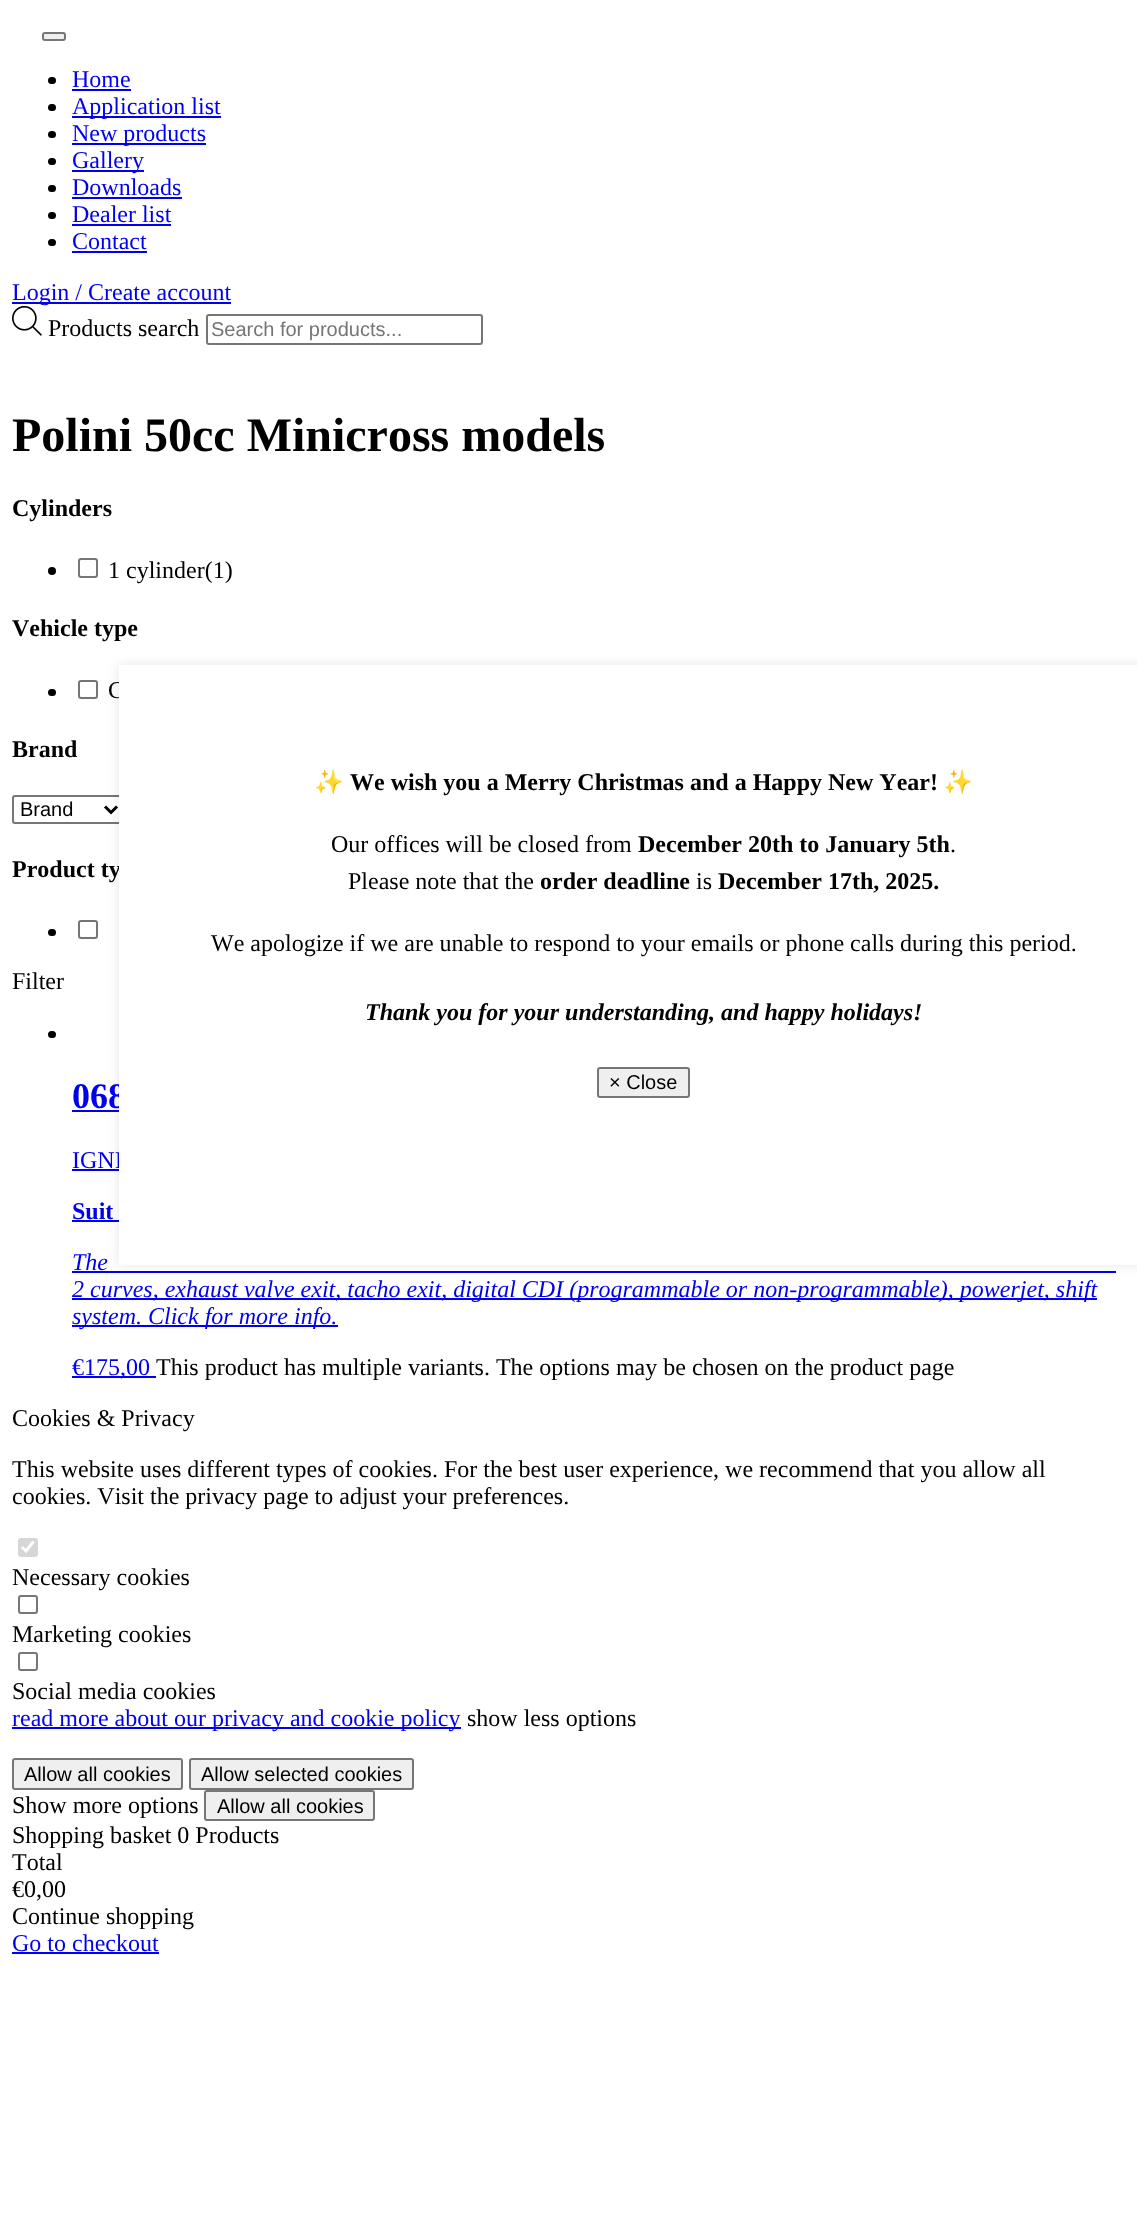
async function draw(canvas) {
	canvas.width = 1137;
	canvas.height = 2214;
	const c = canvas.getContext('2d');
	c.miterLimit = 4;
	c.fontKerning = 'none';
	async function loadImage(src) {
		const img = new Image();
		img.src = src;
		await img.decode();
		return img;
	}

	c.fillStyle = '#fff';
	c.fillRect(0, 0, 1137, 2214);
	c.fillStyle = '#efefef';
	c.beginPath();
	c.roundRect(43, 33, 22, 7, 2);
	c.fill();
	c.strokeStyle = '#767676';
	c.lineWidth = 2;
	c.stroke();
	c.fillStyle = '#000';
	c.beginPath();
	c.roundRect(48, 77, 8, 7, 3.5);
	c.fill();
	c.font = '24px Liberation Serif';
	c.fillStyle = '#00e';
	c.fillText('Home', 72, 87);
	c.fillRect(72, 89, 59, 2);
	c.fillStyle = '#000';
	c.beginPath();
	c.roundRect(48, 104, 8, 7, 3.5);
	c.fill();
	c.fillStyle = '#00e';
	c.fillRect(72, 116, 149, 2);
	c.fillText('Application list', 72, 114);
	c.fillStyle = '#000';
	c.beginPath();
	c.roundRect(48, 131, 8, 7, 3.5);
	c.fill();
	c.fillStyle = '#00e';
	c.fillRect(72, 143, 134, 2);
	c.fillText('New products', 72, 141);
	c.fillStyle = '#000';
	c.beginPath();
	c.roundRect(48, 158, 8, 7, 3.5);
	c.fill();
	c.fillStyle = '#00e';
	c.fillRect(72, 170, 72, 2);
	c.fillText('Gallery', 72, 168);
	c.fillStyle = '#000';
	c.beginPath();
	c.roundRect(48, 185, 8, 7, 3.5);
	c.fill();
	c.fillStyle = '#00e';
	c.fillText('Downloads', 72, 195);
	c.fillRect(72, 197, 110, 2);
	c.fillStyle = '#000';
	c.beginPath();
	c.roundRect(48, 212, 8, 7, 3.5);
	c.fill();
	c.fillStyle = '#00e';
	c.fillText('Dealer list', 72, 222);
	c.fillRect(72, 224, 99, 2);
	c.fillStyle = '#000';
	c.beginPath();
	c.roundRect(48, 239, 8, 7, 3.5);
	c.fill();
	c.fillStyle = '#00e';
	c.fillText('Contact', 72, 249);
	c.fillRect(72, 251, 75, 2);
	c.fillRect(12, 302, 219, 2);
	c.fillText('Login / Create account', 12, 300);
	c.drawImage(await loadImage('img1.png'), 12, 306, 30, 30);
	c.fillStyle = '#000';
	c.fillText('Products search', 48, 336);
	c.beginPath();
	c.roundRect(207, 315, 275, 29, 2);
	c.stroke();
	c.font = '20px Liberation Sans';
	c.fillStyle = '#757575';
	c.fillText('Search for products...', 211, 336);
	c.font = 'bold 48px Liberation Serif';
	c.fillStyle = '#000';
	c.fillText('Polini 50cc Minicross models', 12, 451);
	c.font = 'bold 24px Liberation Serif';
	c.fillText('Cylinders', 12, 516);
	c.beginPath();
	c.arc(52, 571, 4, 0, 2 * Math.PI);
	c.fill();
	c.beginPath();
	c.roundRect(79, 559, 18, 18, 2);
	c.stroke();
	c.font = '24px Liberation Serif';
	c.fillText('1 cylinder(1)', 108, 578);
	c.font = 'bold 24px Liberation Serif';
	c.fillText('Vehicle type', 12, 636);
	c.beginPath();
	c.roundRect(48, 689, 8, 7, 3.5);
	c.fill();
	c.beginPath();
	c.roundRect(79, 681, 18, 17, 2);
	c.stroke();
	c.font = '24px Liberation Serif';
	c.fillText('C', 108, 698);
	c.font = 'bold 24px Liberation Serif';
	c.fillText('Brand', 12, 757);
	c.beginPath();
	c.roundRect(13, 796, 111, 27, 2);
	c.stroke();
	c.beginPath();
	c.moveTo(105, 806.5);
	c.lineTo(111, 812.5);
	c.lineTo(117, 806.5);
	c.strokeStyle = '#000';
	c.lineWidth = 3;
	c.stroke();
	c.font = '20px Liberation Sans';
	c.fillText('Brand', 20, 816);
	c.font = 'bold 24px Liberation Serif';
	c.fillText('Product ty', 12, 877);
	c.beginPath();
	c.roundRect(48, 929, 8, 7, 3.5);
	c.fill();
	c.beginPath();
	c.roundRect(79, 921, 18, 17, 2);
	c.strokeStyle = '#767676';
	c.lineWidth = 2;
	c.stroke();
	c.font = '24px Liberation Serif';
	c.fillText('Filter', 12, 989);
	c.beginPath();
	c.roundRect(48, 1031, 8, 7, 3.5);
	c.fill();
	c.font = 'bold 36px Liberation Serif';
	c.fillStyle = '#00e';
	c.fillText('068', 72, 1108);
	c.fillRect(72, 1110, 47, 2);
	c.font = '24px Liberation Serif';
	c.fillText('IGNI', 72, 1168);
	c.fillRect(72, 1169, 47, 2);
	c.font = 'bold 24px Liberation Serif';
	c.fillText('Suit', 72, 1219);
	c.fillRect(72, 1220, 47, 2);
	c.font = 'italic 24px Liberation Serif';
	c.fillText('The', 72, 1270);
	c.fillRect(72, 1271, 1044, 2);
	c.fillRect(72, 1298, 1025, 2);
	c.fillText('2 curves, exhaust valve exit, tacho exit, digital CDI (programmable or non-programmable), powerjet, shift', 72, 1297);
	c.fillRect(72, 1325, 266, 2);
	c.fillText('system. Click for more info.', 72, 1324);
	c.fillRect(72, 1376, 84, 2);
	c.font = '24px Liberation Serif';
	c.fillText('€175,00', 72, 1375);
	c.fillStyle = '#000';
	c.fillText('This product has multiple variants. The options may be chosen on the product page', 156, 1375);
	c.fillStyle = '#0000001a';
	c.filter = 'blur(6px)';
	c.beginPath();
	c.rect(119, 665, 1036, 600);
	c.fill();
	c.filter = 'none';
	c.fillStyle = '#fff';
	c.fillRect(119, 665, 1018, 600);
	c.font = 'bold 24px Noto Color Emoji';
	c.fillStyle = '#000';
	c.fillText('✨', 314, 790);
	c.font = 'bold 24px Liberation Serif';
	c.fillText('We wish you a Merry Christmas and a Happy New Year!', 350, 790);
	c.font = 'bold 24px Noto Color Emoji';
	c.fillText('✨', 943, 790);
	c.font = '24px Liberation Serif';
	c.fillText('Our offices will be closed from', 331, 852);
	c.font = 'bold 24px Liberation Serif';
	c.fillText('December 20th to January 5th', 638, 852);
	c.font = '24px Liberation Serif';
	c.fillText('.', 950, 852);
	c.fillText('Please note that the', 348, 889);
	c.font = 'bold 24px Liberation Serif';
	c.fillText('order deadline', 540, 889);
	c.font = '24px Liberation Serif';
	c.fillText('is', 696, 889);
	c.font = 'bold 24px Liberation Serif';
	c.fillText('December 17th, 2025.', 718, 889);
	c.font = '24px Liberation Serif';
	c.fillText('We apologize if we are unable to respond to your emails or phone calls during this period.', 211, 951);
	c.font = 'italic bold 24px Liberation Serif';
	c.fillText('Thank you for your understanding, and happy holidays!', 365, 1020);
	c.fillStyle = '#efefef';
	c.beginPath();
	c.roundRect(598, 1068, 91, 29, 2);
	c.fill();
	c.stroke();
	c.font = '20px Liberation Sans';
	c.fillStyle = '#000';
	c.fillText('× Close', 609, 1089);
	c.font = '24px Liberation Serif';
	for (const [text, x, y] of [
		['Cookies & Privacy', 12, 1426],
		['This website uses different types of cookies. For the best user experience, we recommend that you allow all', 12, 1477],
		['cookies. Visit the privacy page to adjust your preferences.', 12, 1504],
	]) {
		c.fillText(text, x, y);
	}
	c.fillStyle = '#d6d6d6';
	c.beginPath();
	c.roundRect(18, 1538, 20, 19, 3);
	c.fill();
	c.beginPath();
	c.moveTo(22, 1547);
	c.lineTo(26, 1551);
	c.lineTo(33.5, 1541.5);
	c.strokeStyle = '#fff';
	c.lineWidth = 3.1;
	c.stroke();
	c.fillStyle = '#000';
	c.fillText('Necessary cookies', 12, 1585);
	c.beginPath();
	c.roundRect(19, 1596, 18, 17, 2);
	c.strokeStyle = '#767676';
	c.lineWidth = 2;
	c.stroke();
	c.fillText('Marketing cookies', 12, 1642);
	c.beginPath();
	c.roundRect(19, 1653, 18, 17, 2);
	c.stroke();
	c.fillText('Social media cookies', 12, 1699);
	c.fillStyle = '#00e';
	c.fillRect(12, 1727, 449, 2);
	c.fillText('read more about our privacy and cookie policy', 12, 1726);
	c.fillStyle = '#000';
	c.fillText('show less options', 467, 1726);
	c.fillStyle = '#efefef';
	c.beginPath();
	c.roundRect(13, 1759, 169, 30, 2);
	c.fill();
	c.stroke();
	c.font = '20px Liberation Sans';
	c.fillStyle = '#000';
	c.fillText('Allow all cookies', 24, 1781);
	c.fillStyle = '#efefef';
	c.beginPath();
	c.roundRect(190, 1759, 223, 30, 2);
	c.fill();
	c.stroke();
	c.fillStyle = '#000';
	c.fillText('Allow selected cookies', 201, 1781);
	c.font = '24px Liberation Serif';
	c.fillText('Show more options', 12, 1813);
	c.fillStyle = '#efefef';
	c.beginPath();
	c.roundRect(205, 1791, 169, 29, 2);
	c.fill();
	c.stroke();
	c.font = '20px Liberation Sans';
	c.fillStyle = '#000';
	c.fillText('Allow all cookies', 217, 1813);
	c.font = '24px Liberation Serif';
	for (const [text, x, y] of [
		['Shopping basket 0 Products', 12, 1843],
		['Total', 12, 1870],
		['€0,00', 12, 1897],
		['Continue shopping', 12, 1924],
	]) {
		c.fillText(text, x, y);
	}
	c.fillStyle = '#00e';
	c.fillText('Go to checkout', 12, 1951);
	c.fillRect(12, 1952, 147, 2);
}

draw(document.querySelector('canvas'));
